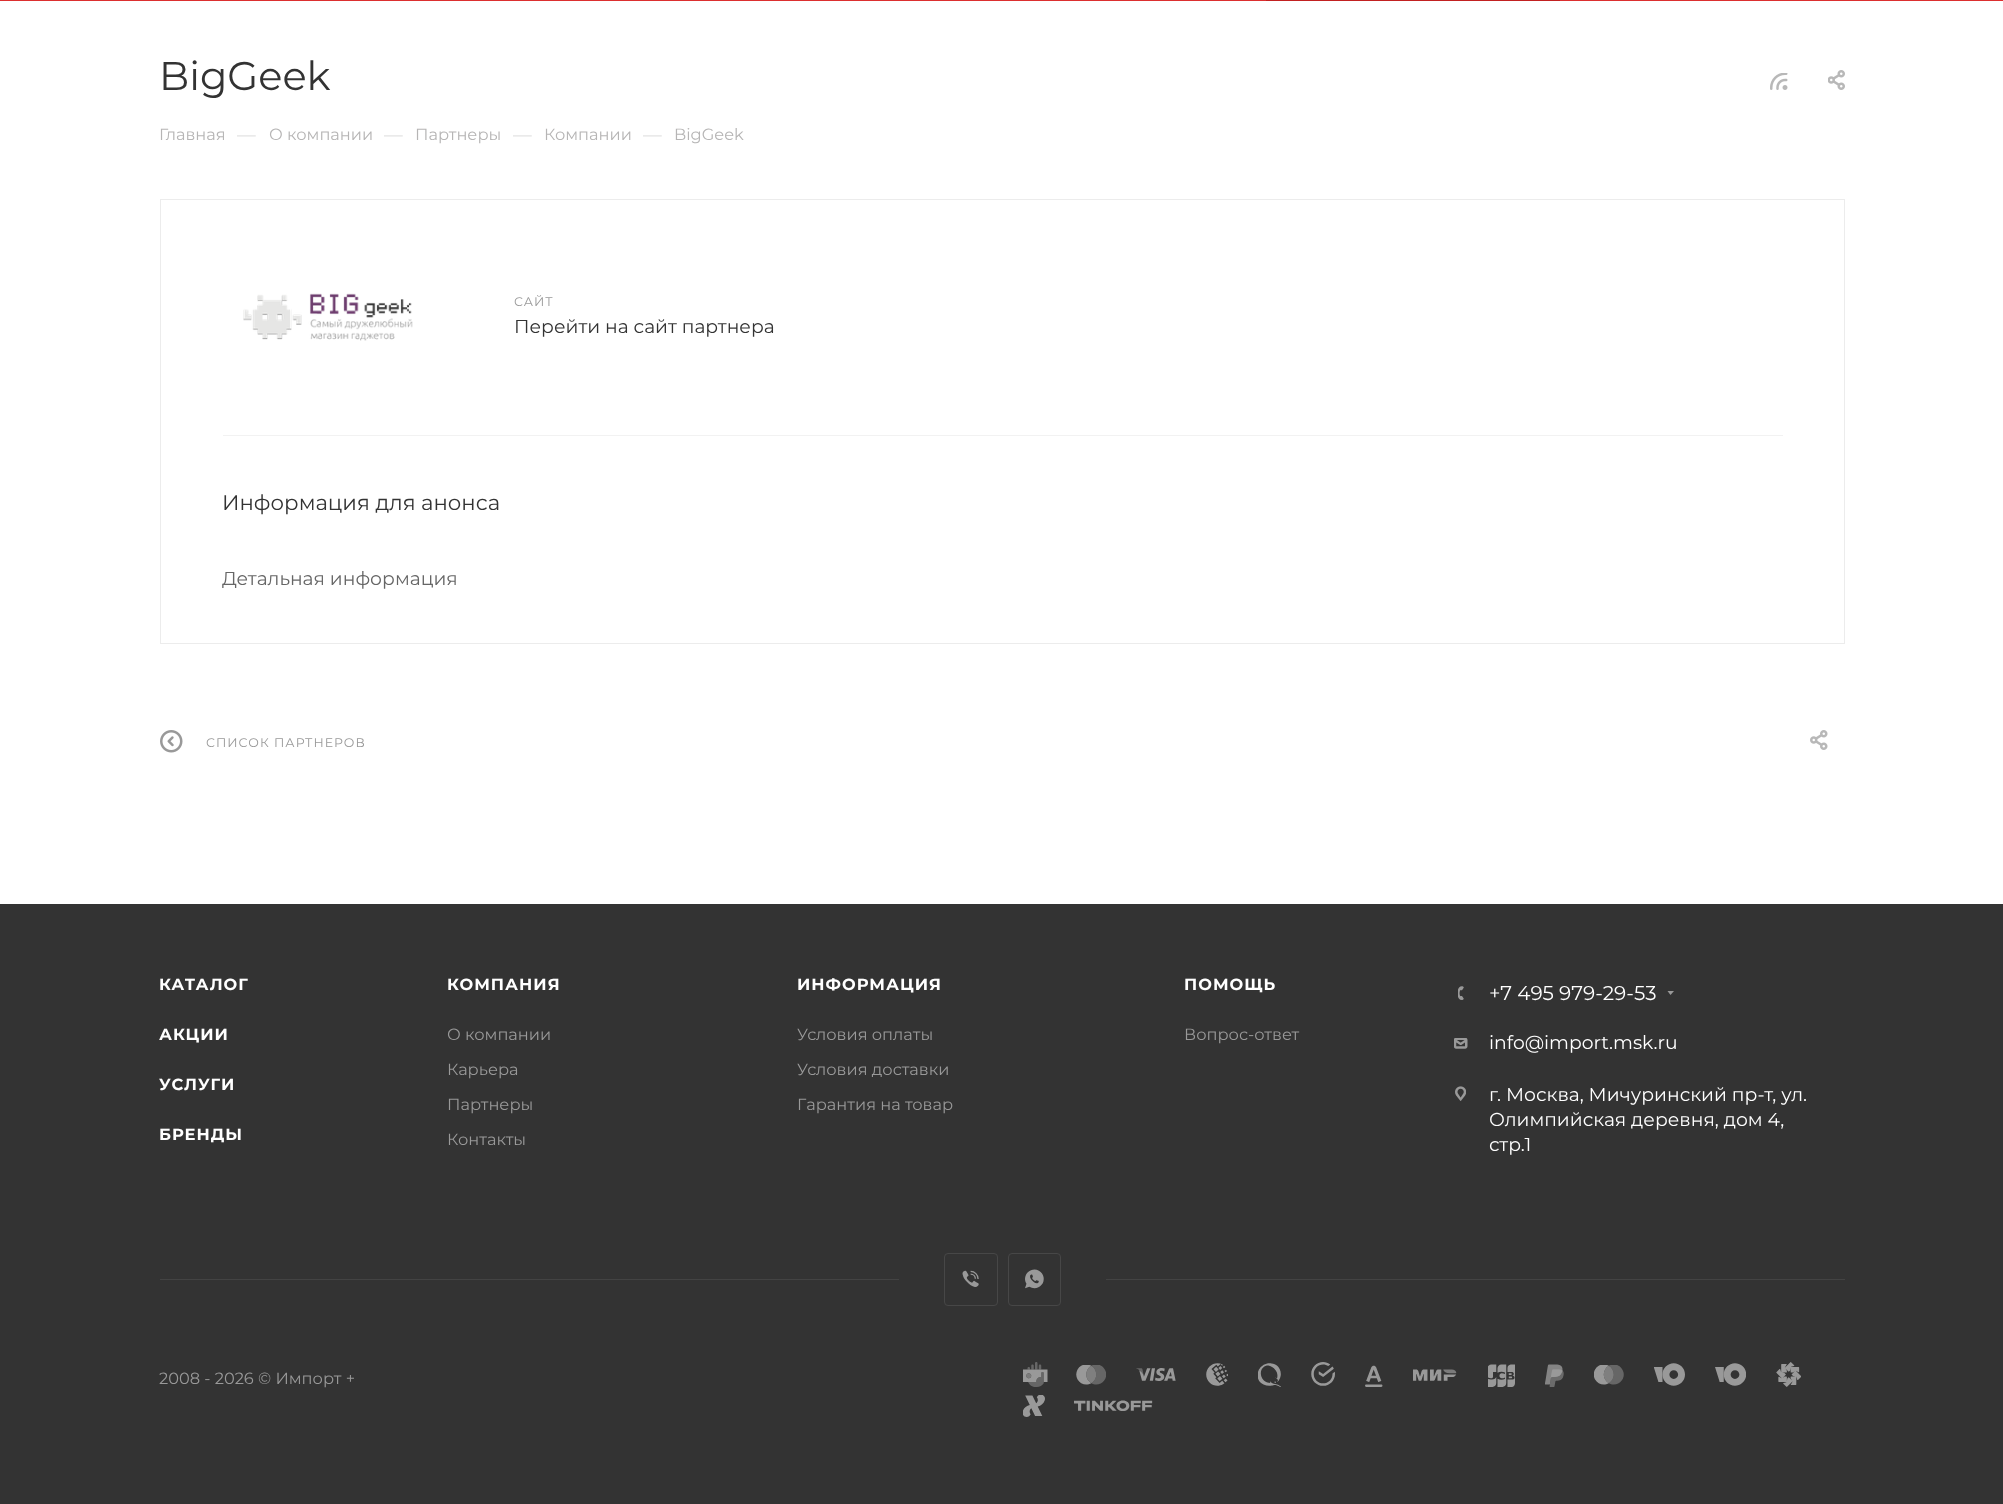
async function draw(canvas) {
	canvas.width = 2003;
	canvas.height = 1504;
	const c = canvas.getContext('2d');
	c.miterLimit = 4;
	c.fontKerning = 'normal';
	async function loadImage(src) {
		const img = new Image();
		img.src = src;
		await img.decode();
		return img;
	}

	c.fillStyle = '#fff';
	c.fillRect(0, 0, 2003, 1504);
	c.fillStyle = '#dc2f2f';
	c.fillRect(0, 0, 2003, 1);
	c.fillStyle = '#c22121';
	c.fillRect(1266, 0, 294, 1);
	c.font = '40px Montserrat';
	c.fillStyle = '#333';
	c.fillText('BigGeek', 159, 90);
	c.drawImage(await loadImage('img1.png'), 1770, 73, 18, 17);
	c.drawImage(await loadImage('img2.png'), 1828, 70, 17, 20);
	c.font = '16.25px Montserrat';
	c.fillStyle = '#b6b5b5';
	c.fillText('Главная', 159, 140);
	c.font = '18.75px Montserrat';
	c.fillStyle = '#ddd';
	c.fillText('—', 237, 141);
	c.font = '16.25px Montserrat';
	c.fillStyle = '#b6b5b5';
	c.fillText('О компании', 269, 140);
	c.font = '18.75px Montserrat';
	c.fillStyle = '#ddd';
	c.fillText('—', 384, 141);
	c.font = '16.25px Montserrat';
	c.fillStyle = '#b6b5b5';
	c.fillText('Партнеры', 415, 140);
	c.font = '18.75px Montserrat';
	c.fillStyle = '#ddd';
	c.fillText('—', 513, 141);
	c.font = '16.25px Montserrat';
	c.fillStyle = '#b6b5b5';
	c.fillText('Компании', 544, 140);
	c.font = '18.75px Montserrat';
	c.fillStyle = '#ddd';
	c.fillText('—', 643, 141);
	c.font = '16.25px Montserrat';
	c.fillStyle = '#b6b5b5';
	c.fillText('BigGeek', 674, 140);
	c.strokeStyle = '#ececec';
	c.strokeRect(160.5, 199.5, 1684, 444);
	c.drawImage(await loadImage('img3.png'), 243, 293, 170, 48);
	c.letterSpacing = '1px';
	c.font = '12.5px Montserrat';
	c.fillStyle = '#999';
	c.fillText('САЙТ', 514, 306);
	c.letterSpacing = '0px';
	c.font = '18.75px Montserrat';
	c.fillStyle = '#333';
	c.fillText('Перейти на сайт партнера', 514, 333);
	c.fillStyle = '#f2f2f2';
	c.fillRect(223, 435, 1560, 1);
	c.font = '21.25px Montserrat';
	c.fillStyle = '#333';
	c.fillText('Информация для анонса', 222, 510);
	c.font = '18.75px Montserrat';
	c.fillStyle = '#666';
	c.fillText('Детальная информация', 222, 585);
	c.drawImage(await loadImage('img4.png'), 160, 730, 23, 23);
	c.letterSpacing = '1px';
	c.font = '12.5px Montserrat';
	c.fillStyle = '#999';
	c.fillText('СПИСОК ПАРТНЕРОВ', 206, 747);
	c.drawImage(await loadImage('img5.png'), 1810, 730, 18, 20);
	c.fillStyle = '#333';
	c.fillRect(0, 904, 2003, 600);
	c.font = 'bold 16.25px Montserrat';
	c.fillStyle = '#fff';
	for (const [text, x, y] of [
		['КАТАЛОГ', 159, 990],
		['АКЦИИ', 159, 1040],
		['УСЛУГИ', 159, 1090],
		['БРЕНДЫ', 159, 1140],
		['КОМПАНИЯ', 447, 990],
	]) {
		c.fillText(text, x, y);
	}
	c.letterSpacing = '0px';
	c.font = '16.25px Montserrat';
	c.fillStyle = '#999';
	for (const [text, x, y] of [
		['О компании', 447, 1040],
		['Карьера', 447, 1075],
		['Партнеры', 447, 1110],
		['Контакты', 447, 1145],
	]) {
		c.fillText(text, x, y);
	}
	c.letterSpacing = '1px';
	c.font = 'bold 16.25px Montserrat';
	c.fillStyle = '#fff';
	c.fillText('ИНФОРМАЦИЯ', 797, 990);
	c.letterSpacing = '0px';
	c.font = '16.25px Montserrat';
	c.fillStyle = '#999';
	for (const [text, x, y] of [
		['Условия оплаты', 797, 1040],
		['Условия доставки', 797, 1075],
		['Гарантия на товар', 797, 1110],
	]) {
		c.fillText(text, x, y);
	}
	c.letterSpacing = '1px';
	c.font = 'bold 16.25px Montserrat';
	c.fillStyle = '#fff';
	c.fillText('ПОМОЩЬ', 1184, 990);
	c.letterSpacing = '0px';
	c.font = '16.25px Montserrat';
	c.fillStyle = '#999';
	c.fillText('Вопрос-ответ', 1184, 1040);
	c.drawImage(await loadImage('img6.png'), 1458, 986, 6, 14);
	c.font = '20px Montserrat';
	c.fillStyle = '#fff';
	c.fillText('+7 495 979-29-53', 1489, 1000);
	c.fillStyle = '#999';
	c.beginPath();
	c.moveTo(1667.5, 991);
	c.lineTo(1674, 991);
	c.lineTo(1670.5, 995);
	c.closePath();
	c.fill('evenodd');
	c.drawImage(await loadImage('img7.png'), 1454, 1038, 14, 11);
	c.font = '18.75px Montserrat';
	c.fillStyle = '#fff';
	c.fillText('info@import.msk.ru', 1489, 1049);
	c.drawImage(await loadImage('img8.png'), 1455, 1086, 11, 15);
	for (const [text, x, y] of [
		['г. Москва, Мичуринский пр-т, ул.', 1489, 1101],
		['Олимпийская деревня, дом 4,', 1489, 1126],
		['стр.1', 1489, 1151],
	]) {
		c.fillText(text, x, y);
	}
	c.fillStyle = '#434343';
	c.fillRect(160, 1279, 1685, 1);
	c.fillStyle = '#333';
	c.fillRect(899, 1279, 207, 1);
	c.drawImage(await loadImage('img9.png'), 962, 1270, 17, 17);
	c.beginPath();
	c.roundRect(944.5, 1253.5, 53, 52, 3.5);
	c.strokeStyle = '#474747';
	c.stroke();
	c.drawImage(await loadImage('img10.png'), 1025, 1269, 19, 20);
	c.beginPath();
	c.roundRect(1008.5, 1253.5, 52, 52, 3.5);
	c.stroke();
	c.font = '16.25px Montserrat';
	c.fillStyle = '#999';
	c.fillText('2008 - 2026 © Импорт +', 159, 1384);
	c.drawImage(await loadImage('img11.png'), 1023, 1362, 25, 25);
	c.drawImage(await loadImage('img12.png'), 1076, 1365, 30, 20);
	c.drawImage(await loadImage('img13.png'), 1136, 1368, 40, 13);
	c.drawImage(await loadImage('img14.png'), 1206, 1363, 22, 23);
	c.drawImage(await loadImage('img15.png'), 1258, 1363, 23, 24);
	c.drawImage(await loadImage('img16.png'), 1311, 1362, 24, 24);
	c.drawImage(await loadImage('img17.png'), 1365, 1365, 18, 22);
	c.drawImage(await loadImage('img18.png'), 1413, 1369, 44, 12);
	c.drawImage(await loadImage('img19.png'), 1488, 1364, 27, 23);
	c.drawImage(await loadImage('img20.png'), 1545, 1364, 19, 23);
	c.drawImage(await loadImage('img21.png'), 1594, 1365, 30, 20);
	c.drawImage(await loadImage('img22.png'), 1654, 1363, 31, 23);
	c.drawImage(await loadImage('img23.png'), 1715, 1363, 31, 23);
	c.drawImage(await loadImage('img24.png'), 1776, 1362, 25, 25);
	c.drawImage(await loadImage('img25.png'), 1023, 1395, 22, 22);
	c.drawImage(await loadImage('img26.png'), 1074, 1400, 79, 11);
}

draw(document.querySelector('canvas'));
